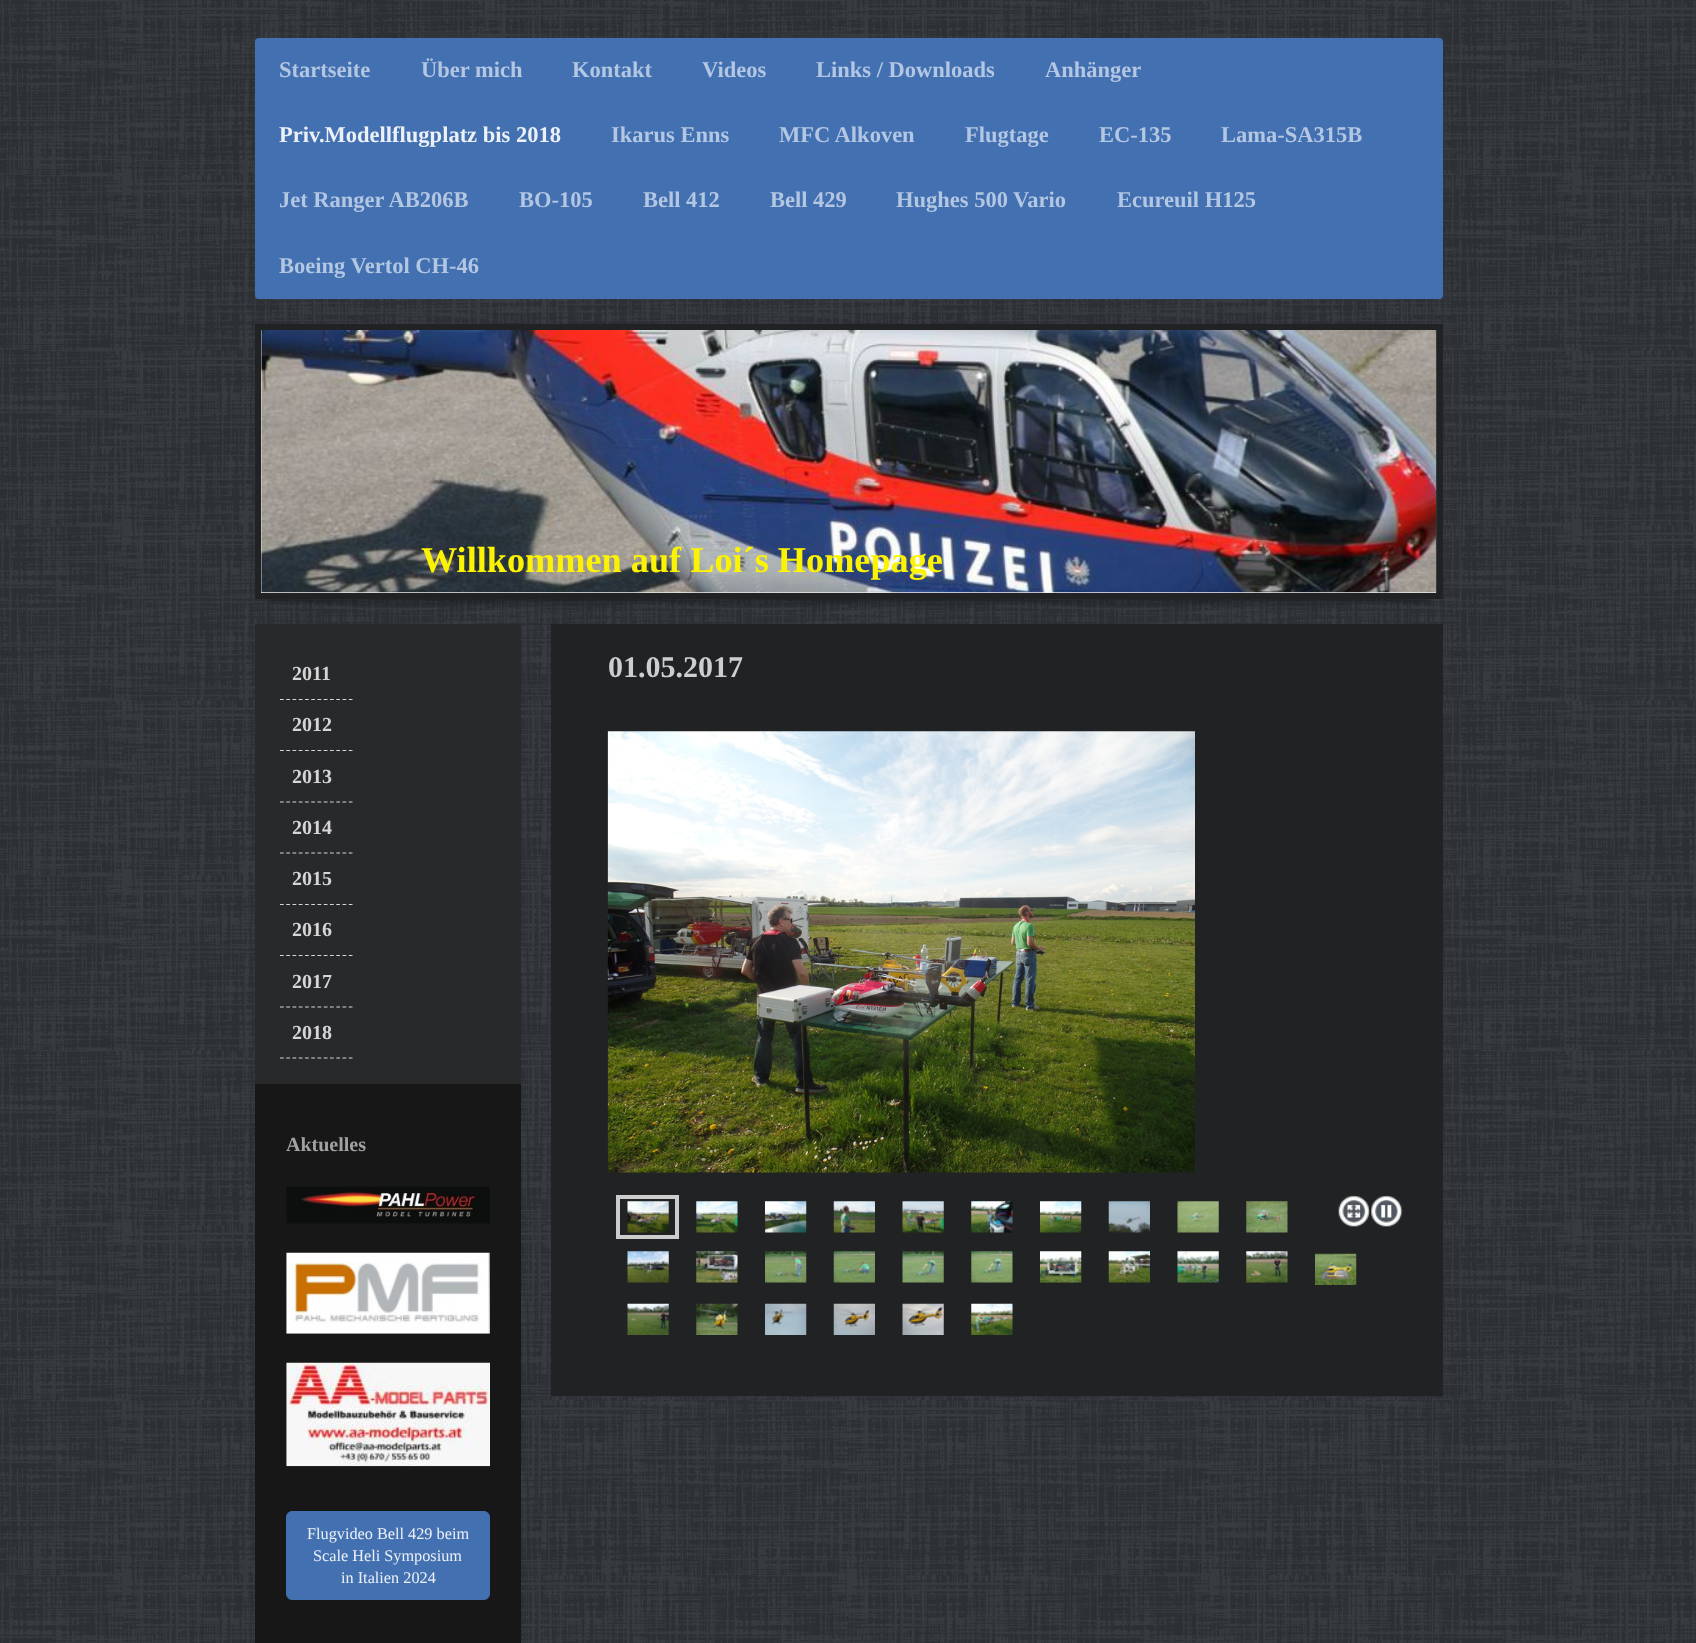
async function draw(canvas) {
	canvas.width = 1696;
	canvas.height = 1643;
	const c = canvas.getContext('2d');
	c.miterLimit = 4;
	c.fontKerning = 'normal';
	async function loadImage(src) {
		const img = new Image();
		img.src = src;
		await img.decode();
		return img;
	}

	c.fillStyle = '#373c42';
	c.fillRect(0, 0, 1696, 1643);
	c.drawImage(await loadImage('img1.png'), 0, 0, 1696, 1643);
	c.fillStyle = '#4370b1';
	c.beginPath();
	c.roundRect(255, 38, 1188, 261, 4);
	c.fill();
	c.font = 'bold 22.5px Liberation Serif';
	c.fillStyle = '#b3c6e2';
	for (const [text, x, y] of [
		['Startseite', 279, 77],
		['Über mich', 421, 77],
		['Kontakt', 572, 77],
		['Videos', 702, 77],
		['Links / Downloads', 816, 77],
		['Anhänger', 1045, 77],
	]) {
		c.fillText(text, x, y);
	}
	c.fillStyle = '#ecf1f7';
	c.fillText('Priv.Modellflugplatz bis 2018', 279, 142);
	c.fillStyle = '#b3c6e2';
	for (const [text, x, y] of [
		['Ikarus Enns', 611, 142],
		['MFC Alkoven', 779, 142],
		['Flugtage', 965, 142],
		['EC-135', 1099, 142],
		['Lama-SA315B', 1221, 142],
		['Jet Ranger AB206B', 279, 207],
		['BO-105', 519, 207],
		['Bell 412', 643, 207],
		['Bell 429', 770, 207],
		['Hughes 500 Vario', 896, 207],
		['Ecureuil H125', 1117, 207],
		['Boeing Vertol CH-46', 279, 273],
	]) {
		c.fillText(text, x, y);
	}
	c.fillStyle = '#0000004d';
	c.filter = 'blur(3px)';
	c.beginPath();
	c.rect(268, 328, 1162, 275);
	c.fill();
	c.filter = 'none';
	c.strokeStyle = '#212224';
	c.lineWidth = 6;
	c.strokeRect(258, 327, 1182, 269);
	c.fillStyle = '#eee';
	c.fillRect(261, 330, 1175, 263);
	c.drawImage(await loadImage('img2.png'), 261, 330, 1176, 263);
	c.font = 'bold 36.25px Liberation Serif';
	c.fillStyle = '#fcf302';
	c.fillText('Willkommen auf Loi´s Homepage', 421, 572);
	c.fillStyle = '#28292b';
	c.fillRect(255, 624, 266, 460);
	c.fillStyle = '#212224';
	c.fillRect(551, 624, 892, 772);
	c.font = 'bold 30px Liberation Serif';
	c.fillStyle = '#cdced0';
	c.fillText('01.05.2017', 608, 677);
	c.drawImage(await loadImage('img3.png'), 607, 731, 588, 442);
	c.strokeStyle = '#ccc';
	c.lineWidth = 4;
	c.strokeRect(618, 1197, 59, 40);
	c.drawImage(await loadImage('img4.png'), 627, 1201, 42, 32);
	c.drawImage(await loadImage('img5.png'), 696, 1201, 42, 32);
	c.drawImage(await loadImage('img6.png'), 765, 1201, 42, 32);
	c.drawImage(await loadImage('img7.png'), 833, 1201, 42, 32);
	c.drawImage(await loadImage('img8.png'), 902, 1201, 42, 32);
	c.drawImage(await loadImage('img9.png'), 971, 1201, 42, 32);
	c.drawImage(await loadImage('img10.png'), 1040, 1201, 42, 32);
	c.drawImage(await loadImage('img11.png'), 1108, 1201, 42, 32);
	c.drawImage(await loadImage('img12.png'), 1177, 1201, 42, 32);
	c.drawImage(await loadImage('img13.png'), 1246, 1201, 42, 32);
	c.drawImage(await loadImage('img14.png'), 1338, 1195, 32, 32);
	c.drawImage(await loadImage('img15.png'), 1371, 1195, 32, 32);
	c.drawImage(await loadImage('img16.png'), 627, 1251, 42, 32);
	c.drawImage(await loadImage('img17.png'), 696, 1251, 42, 32);
	c.drawImage(await loadImage('img18.png'), 765, 1251, 42, 32);
	c.drawImage(await loadImage('img19.png'), 833, 1251, 42, 32);
	c.drawImage(await loadImage('img20.png'), 902, 1251, 42, 32);
	c.drawImage(await loadImage('img21.png'), 971, 1251, 42, 32);
	c.drawImage(await loadImage('img22.png'), 1040, 1251, 42, 32);
	c.drawImage(await loadImage('img23.png'), 1108, 1251, 42, 32);
	c.drawImage(await loadImage('img24.png'), 1177, 1251, 42, 32);
	c.drawImage(await loadImage('img25.png'), 1246, 1251, 42, 32);
	c.drawImage(await loadImage('img26.png'), 1315, 1253, 42, 32);
	c.drawImage(await loadImage('img27.png'), 627, 1303, 42, 32);
	c.drawImage(await loadImage('img28.png'), 696, 1303, 42, 32);
	c.drawImage(await loadImage('img29.png'), 765, 1303, 42, 32);
	c.drawImage(await loadImage('img30.png'), 833, 1303, 42, 32);
	c.drawImage(await loadImage('img31.png'), 902, 1303, 42, 32);
	c.drawImage(await loadImage('img32.png'), 971, 1303, 42, 32);
	c.beginPath();
	c.moveTo(280, 699.5);
	c.lineTo(352.5, 699.5);
	c.strokeStyle = '#d5d5d6';
	c.lineWidth = 1.2;
	c.setLineDash([3.75, 2.5]);
	c.stroke();
	c.font = 'bold 20px Liberation Serif';
	c.fillStyle = '#d5d5d6';
	c.fillText('2011', 292, 680);
	c.beginPath();
	c.moveTo(280, 750.5);
	c.lineTo(352.5, 750.5);
	c.stroke();
	c.fillText('2012', 292, 731);
	c.beginPath();
	c.moveTo(280, 802);
	c.lineTo(352.5, 802);
	c.stroke();
	c.fillText('2013', 292, 783);
	c.beginPath();
	c.moveTo(280, 853);
	c.lineTo(352.5, 853);
	c.stroke();
	c.fillText('2014', 292, 834);
	c.beginPath();
	c.moveTo(280, 904.5);
	c.lineTo(352.5, 904.5);
	c.stroke();
	c.fillText('2015', 292, 885);
	c.beginPath();
	c.moveTo(280, 955.5);
	c.lineTo(352.5, 955.5);
	c.stroke();
	c.fillText('2016', 292, 936);
	c.beginPath();
	c.moveTo(280, 1007);
	c.lineTo(352.5, 1007);
	c.stroke();
	c.fillText('2017', 292, 988);
	c.beginPath();
	c.moveTo(280, 1058);
	c.lineTo(352.5, 1058);
	c.stroke();
	c.fillText('2018', 292, 1039);
	c.fillStyle = '#171717';
	c.fillRect(255, 1084, 266, 559);
	c.fillStyle = '#a1a1a1';
	c.fillText('Aktuelles', 286, 1151);
	c.drawImage(await loadImage('img33.png'), 286, 1186, 204, 38);
	c.drawImage(await loadImage('img34.png'), 286, 1252, 204, 82);
	c.drawImage(await loadImage('img35.png'), 286, 1362, 204, 105);
	c.fillStyle = '#4370b1';
	c.beginPath();
	c.roundRect(286.5, 1511.5, 203, 88, 5.5);
	c.fill();
	c.strokeStyle = '#4370b1';
	c.lineWidth = 1;
	c.setLineDash([]);
	c.stroke();
	c.font = '16.25px Liberation Serif';
	c.fillStyle = '#ecf1f7';
	for (const [text, x, y] of [
		['Flugvideo Bell 429 beim', 307, 1539],
		['Scale Heli Symposium', 313, 1561],
		['in Italien 2024', 341, 1583],
	]) {
		c.fillText(text, x, y);
	}
}

draw(document.querySelector('canvas'));
